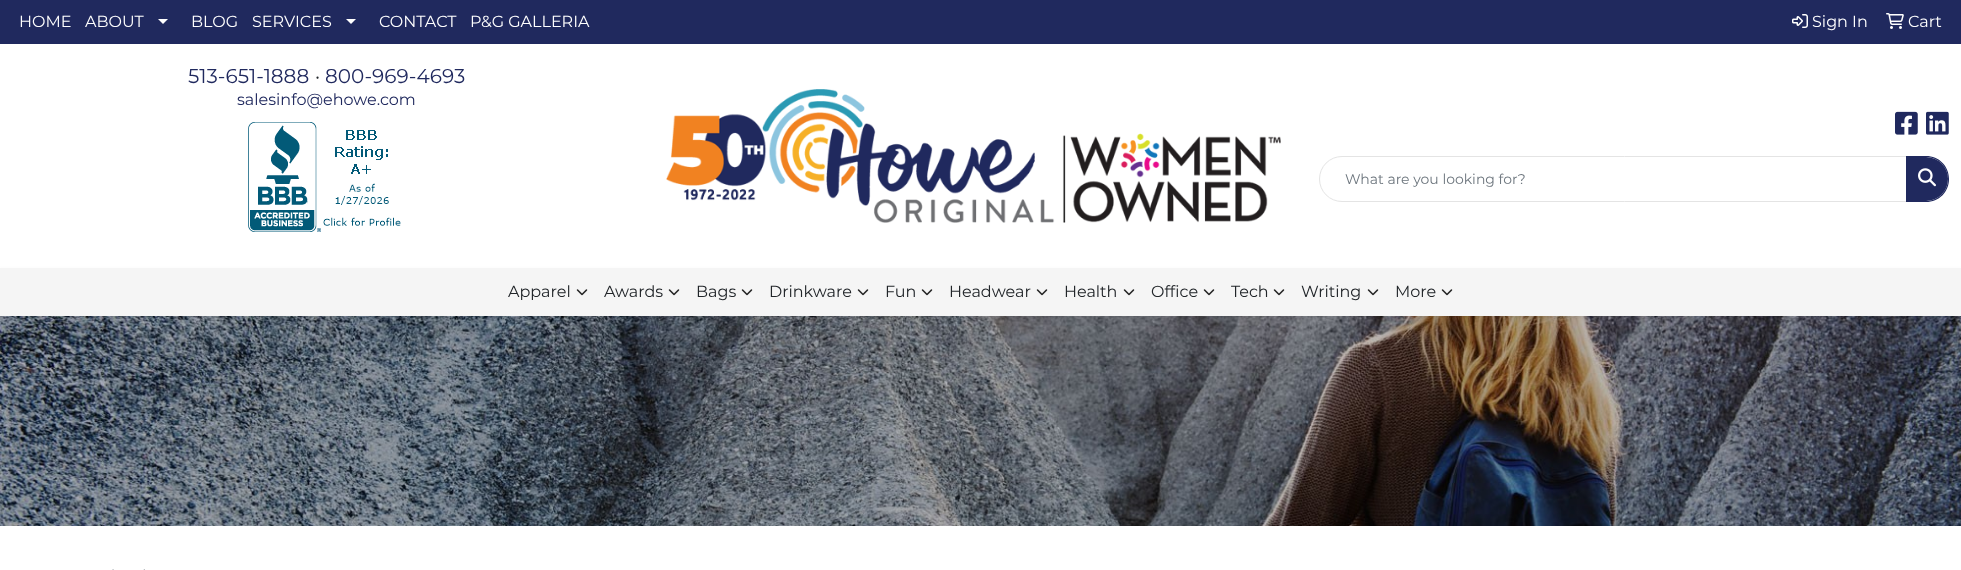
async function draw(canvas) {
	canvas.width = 1961;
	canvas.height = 570;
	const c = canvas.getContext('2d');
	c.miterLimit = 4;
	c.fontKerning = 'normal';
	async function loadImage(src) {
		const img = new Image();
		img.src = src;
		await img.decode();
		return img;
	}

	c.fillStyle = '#fff';
	c.fillRect(0, 0, 1961, 570);
	c.fillStyle = '#20295e';
	c.fillRect(0, 0, 1961, 44);
	c.font = '100 16px Montserrat';
	c.fillStyle = '#fff';
	c.fillText('HOME', 19, 27);
	c.fillText('ABOUT', 85, 27);
	c.beginPath();
	c.moveTo(158, 19);
	c.lineTo(168, 19);
	c.lineTo(163, 24);
	c.closePath();
	c.fill();
	c.fillText('BLOG', 191, 27);
	c.fillText('SERVICES', 252, 27);
	c.beginPath();
	c.moveTo(346, 19);
	c.lineTo(356, 19);
	c.lineTo(351, 24);
	c.closePath();
	c.fill();
	c.fillText('CONTACT', 379, 27);
	c.fillText('P&G GALLERIA', 470, 27);
	c.drawImage(await loadImage('img1.png'), 1792, 14, 16, 14);
	c.fillText('Sign In', 1812, 27);
	c.drawImage(await loadImage('img2.png'), 1886, 13, 18, 16);
	c.fillText('Cart', 1908, 27);
	c.font = '100 20px Montserrat';
	c.fillStyle = '#20295e';
	c.fillText('513-651-1888', 188, 83);
	c.fillStyle = '#212529';
	c.fillText('·', 315, 83);
	c.fillStyle = '#20295e';
	c.fillText('800-969-4693', 325, 83);
	c.font = '100 16px Montserrat';
	c.fillText('salesinfo@ehowe.com', 237, 105);
	c.drawImage(await loadImage('img3.png'), 248, 122, 153, 110);
	c.drawImage(await loadImage('img4.png'), 666, 89, 615, 134);
	c.drawImage(await loadImage('img5.png'), 1895, 111, 23, 24);
	c.drawImage(await loadImage('img6.png'), 1926, 111, 23, 24);
	c.beginPath();
	c.roundRect(1319.5, 156.5, 587, 45, [22.5, 0, 0, 22.5]);
	c.strokeStyle = '#e4e4e4';
	c.stroke();
	c.font = '100 14px Montserrat';
	c.fillStyle = '#6c757d';
	c.fillText('What are you looking for?', 1345, 184);
	c.fillStyle = '#20295e';
	c.beginPath();
	c.roundRect(1906, 157, 42, 44, [0, 22, 22, 0]);
	c.fill();
	c.beginPath();
	c.moveTo(1906, 156);
	c.lineTo(1926, 156);
	c.bezierCurveTo(1939, 156, 1949, 166, 1949, 179);
	c.bezierCurveTo(1949, 192, 1939, 202, 1926, 202);
	c.lineTo(1906, 202);
	c.closePath();
	c.moveTo(1906, 157);
	c.lineTo(1926, 157);
	c.bezierCurveTo(1938, 157, 1948, 167, 1948, 179);
	c.bezierCurveTo(1948, 191, 1938, 201, 1926, 201);
	c.lineTo(1906, 201);
	c.closePath();
	c.fill('evenodd');
	c.drawImage(await loadImage('img7.png'), 1918, 168, 18, 19);
	c.drawImage(await loadImage('img9.png'), 0, 316, 1961, 210);
	c.fillStyle = '#00000012';
	c.filter = 'blur(2px)';
	c.beginPath();
	c.rect(0, 270, 1961, 48);
	c.fill();
	c.filter = 'none';
	c.fillStyle = '#f5f5f5';
	c.fillRect(0, 268, 1961, 48);
	c.font = '100 16px Montserrat';
	c.fillStyle = '#212529';
	c.fillText('Apparel', 508, 297);
	c.drawImage(await loadImage('img8.png'), 576, 289, 12, 7);
	c.fillText('Awards', 604, 297);
	c.drawImage(await loadImage('img8.png'), 668, 289, 12, 7);
	c.fillText('Bags', 696, 297);
	c.drawImage(await loadImage('img8.png'), 741, 289, 12, 7);
	c.fillText('Drinkware', 769, 297);
	c.drawImage(await loadImage('img8.png'), 857, 289, 12, 7);
	c.fillText('Fun', 885, 297);
	c.drawImage(await loadImage('img8.png'), 921, 289, 12, 7);
	c.fillText('Headwear', 949, 297);
	c.drawImage(await loadImage('img8.png'), 1036, 289, 12, 7);
	c.fillText('Health', 1064, 297);
	c.drawImage(await loadImage('img8.png'), 1123, 289, 12, 7);
	c.fillText('Office', 1151, 297);
	c.drawImage(await loadImage('img8.png'), 1203, 289, 12, 7);
	c.fillText('Tech', 1231, 297);
	c.drawImage(await loadImage('img8.png'), 1273, 289, 12, 7);
	c.fillText('Writing', 1301, 297);
	c.drawImage(await loadImage('img8.png'), 1367, 289, 12, 7);
	c.fillText('More', 1395, 297);
	c.drawImage(await loadImage('img8.png'), 1441, 289, 12, 7);
	c.drawImage(await loadImage('img10.png'), 112, 569, 33, 1);
}

draw(document.querySelector('canvas'));
